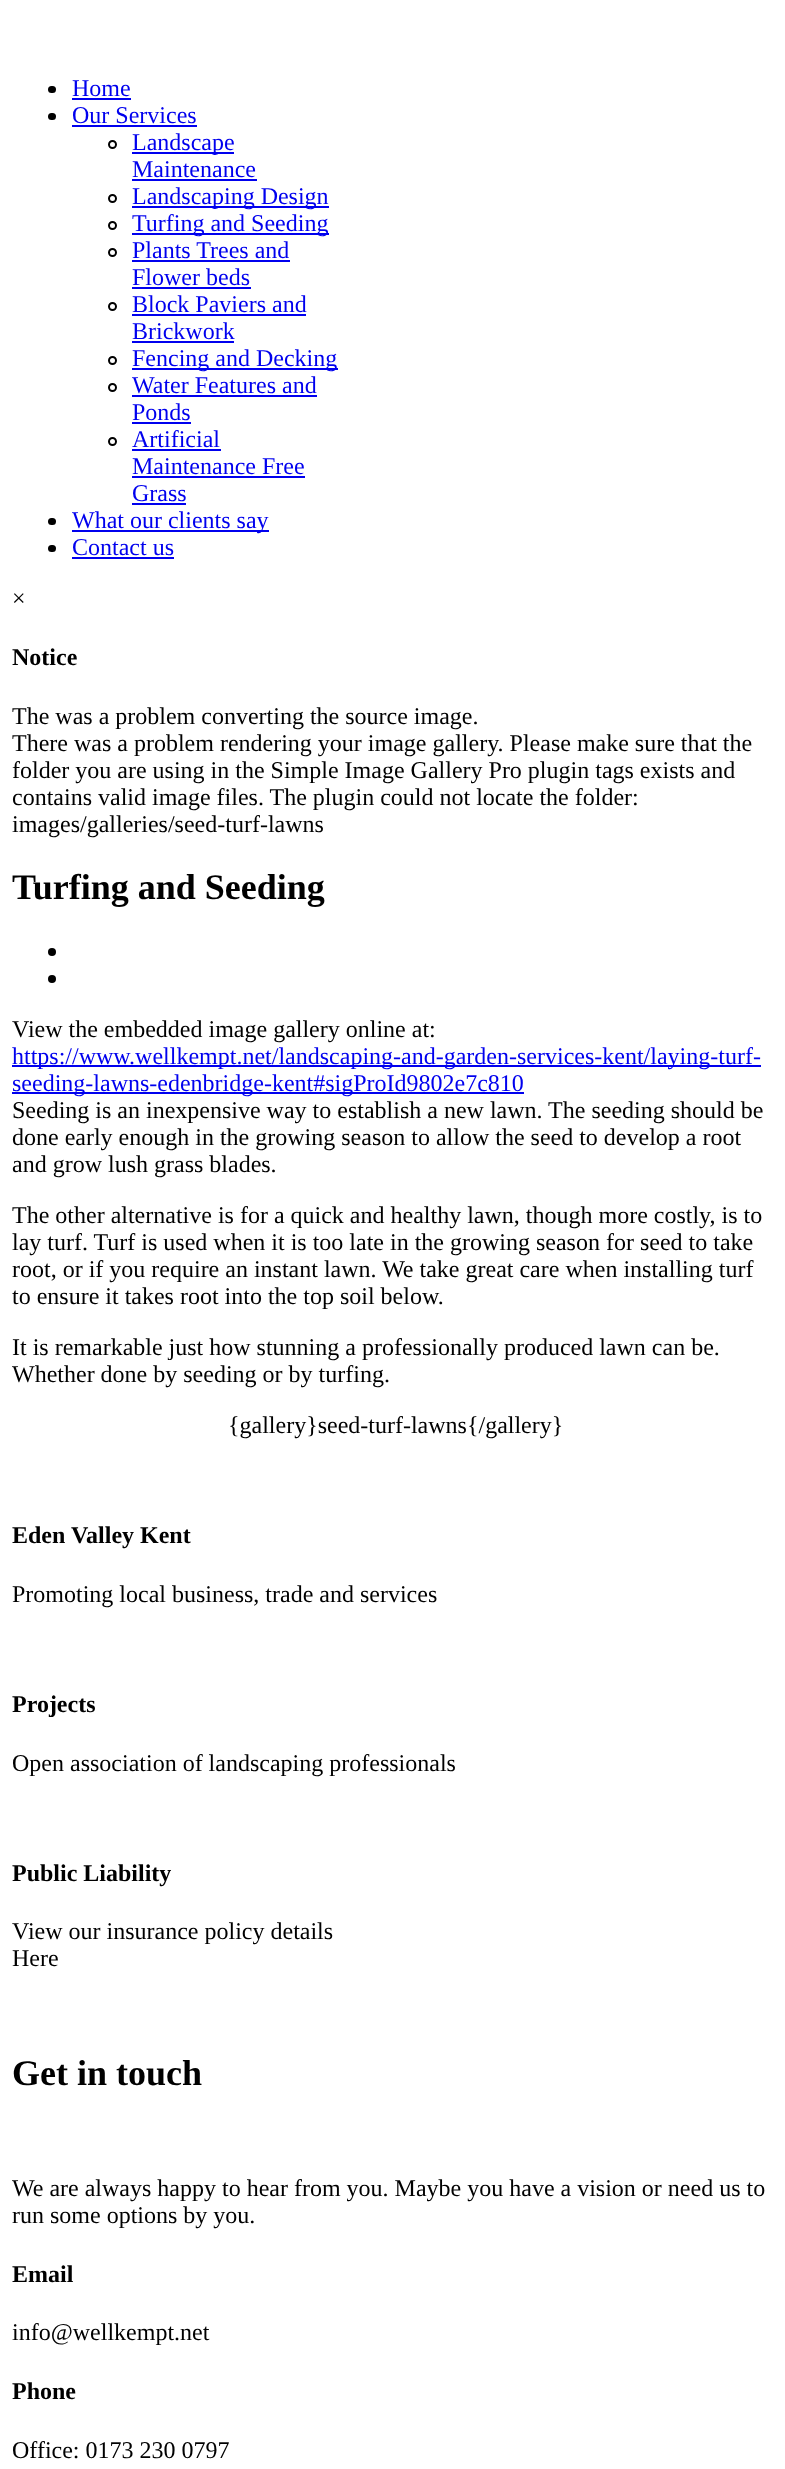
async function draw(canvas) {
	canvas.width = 785;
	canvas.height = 2469;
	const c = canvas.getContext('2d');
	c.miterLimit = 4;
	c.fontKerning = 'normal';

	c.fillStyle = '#fff';
	c.fillRect(0, 0, 785, 2469);
	c.fillStyle = '#000';
	c.beginPath();
	c.roundRect(48, 86, 8, 7, 3.5);
	c.fill();
	c.font = '24px Liberation Serif';
	c.fillStyle = '#00e';
	c.fillText('Home', 72, 96);
	c.fillRect(72, 98, 59, 2);
	c.fillStyle = '#000';
	c.beginPath();
	c.roundRect(48, 113, 8, 7, 3.5);
	c.fill();
	c.fillStyle = '#00e';
	c.fillText('Our Services', 72, 123);
	c.fillRect(72, 125, 125, 2);
	c.beginPath();
	c.arc(112.5, 144.5, 3.5, 0, 2 * Math.PI);
	c.strokeStyle = '#000';
	c.lineWidth = 2;
	c.stroke();
	c.fillRect(132, 152, 102, 2);
	c.fillText('Landscape', 132, 150);
	c.fillText('Maintenance', 132, 177);
	c.fillRect(132, 179, 125, 2);
	c.beginPath();
	c.arc(112.5, 198.5, 3.5, 0, 2 * Math.PI);
	c.stroke();
	c.fillRect(132, 206, 197, 2);
	c.fillText('Landscaping Design', 132, 204);
	c.beginPath();
	c.arc(112.5, 225.5, 3.5, 0, 2 * Math.PI);
	c.stroke();
	c.fillRect(132, 233, 197, 2);
	c.fillText('Turfing and Seeding', 132, 231);
	c.beginPath();
	c.arc(112.5, 252.5, 3.5, 0, 2 * Math.PI);
	c.stroke();
	c.fillText('Plants Trees and', 132, 258);
	c.fillRect(132, 260, 158, 2);
	c.fillText('Flower beds', 132, 285);
	c.fillRect(132, 287, 119, 2);
	c.beginPath();
	c.arc(112.5, 306.5, 3.5, 0, 2 * Math.PI);
	c.stroke();
	c.fillText('Block Paviers and', 132, 312);
	c.fillRect(132, 314, 174, 2);
	c.fillText('Brickwork', 132, 339);
	c.fillRect(132, 341, 102, 2);
	c.beginPath();
	c.arc(112.5, 360.5, 3.5, 0, 2 * Math.PI);
	c.stroke();
	c.fillRect(132, 368, 206, 2);
	c.fillText('Fencing and Decking', 132, 366);
	c.beginPath();
	c.arc(112.5, 387.5, 3.5, 0, 2 * Math.PI);
	c.stroke();
	c.fillText('Water Features and', 132, 393);
	c.fillRect(132, 395, 185, 2);
	c.fillText('Ponds', 132, 420);
	c.fillRect(132, 422, 59, 2);
	c.beginPath();
	c.arc(112.5, 441.5, 3.5, 0, 2 * Math.PI);
	c.stroke();
	c.fillText('Artificial', 132, 447);
	c.fillRect(132, 449, 89, 2);
	c.fillText('Maintenance Free', 132, 474);
	c.fillRect(132, 476, 173, 2);
	c.fillText('Grass', 132, 501);
	c.fillRect(132, 503, 54, 2);
	c.fillStyle = '#000';
	c.beginPath();
	c.roundRect(48, 518, 8, 7, 3.5);
	c.fill();
	c.fillStyle = '#00e';
	c.fillRect(72, 530, 197, 2);
	c.fillText('What our clients say', 72, 528);
	c.fillStyle = '#000';
	c.beginPath();
	c.roundRect(48, 545, 8, 7, 3.5);
	c.fill();
	c.fillStyle = '#00e';
	c.fillText('Contact us', 72, 555);
	c.fillRect(72, 557, 102, 2);
	c.fillStyle = '#000';
	c.fillText('×', 12, 606);
	c.font = 'bold 24px Liberation Serif';
	c.fillText('Notice', 12, 665);
	c.font = '24px Liberation Serif';
	for (const [text, x, y] of [
		['The was a problem converting the source image.', 12, 724],
		['There was a problem rendering your image gallery. Please make sure that the', 12, 751],
		['folder you are using in the Simple Image Gallery Pro plugin tags exists and', 12, 778],
		['contains valid image files. The plugin could not locate the folder:', 12, 805],
		['images/galleries/seed-turf-lawns', 12, 832],
	]) {
		c.fillText(text, x, y);
	}
	c.font = 'bold 36px Liberation Serif';
	c.fillText('Turfing and Seeding', 12, 899);
	c.beginPath();
	c.arc(52, 952, 4, 0, 2 * Math.PI);
	c.fill();
	c.beginPath();
	c.arc(52, 979, 4, 0, 2 * Math.PI);
	c.fill();
	c.font = '24px Liberation Serif';
	c.fillText('View the embedded image gallery online at:', 12, 1037);
	c.fillStyle = '#00e';
	c.fillRect(12, 1065, 749, 2);
	c.fillText('https://www.wellkempt.net/landscaping-and-garden-services-kent/laying-turf-', 12, 1064);
	c.fillRect(12, 1092, 512, 2);
	c.fillText('seeding-lawns-edenbridge-kent#sigProId9802e7c810', 12, 1091);
	c.fillStyle = '#000';
	for (const [text, x, y] of [
		['Seeding is an inexpensive way to establish a new lawn. The seeding should be', 12, 1118],
		['done early enough in the growing season to allow the seed to develop a root', 12, 1145],
		['and grow lush grass blades.', 12, 1172],
		['The other alternative is for a quick and healthy lawn, though more costly, is to', 12, 1223],
		['lay turf. Turf is used when it is too late in the growing season for seed to take', 12, 1250],
		['root, or if you require an instant lawn. We take great care when installing turf', 12, 1277],
		['to ensure it takes root into the top soil below.', 12, 1304],
		['It is remarkable just how stunning a professionally produced lawn can be.', 12, 1355],
		['Whether done by seeding or by turfing.', 12, 1382],
		['{gallery}seed-turf-lawns{/gallery}', 228, 1433],
	]) {
		c.fillText(text, x, y);
	}
	c.font = 'bold 24px Liberation Serif';
	c.fillText('Eden Valley Kent', 12, 1543);
	c.font = '24px Liberation Serif';
	c.fillText('Promoting local business, trade and services', 12, 1602);
	c.font = 'bold 24px Liberation Serif';
	c.fillText('Projects', 12, 1712);
	c.font = '24px Liberation Serif';
	c.fillText('Open association of landscaping professionals', 12, 1771);
	c.font = 'bold 24px Liberation Serif';
	c.fillText('Public Liability', 12, 1881);
	c.font = '24px Liberation Serif';
	c.fillText('View our insurance policy details', 12, 1939);
	c.fillText('Here', 12, 1966);
	c.font = 'bold 36px Liberation Serif';
	c.fillText('Get in touch', 12, 2085);
	c.font = '24px Liberation Serif';
	c.fillText('We are always happy to hear from you. Maybe you have a vision or need us to', 12, 2196);
	c.fillText('run some options by you.', 12, 2223);
	c.font = 'bold 24px Liberation Serif';
	c.fillText('Email', 12, 2282);
	c.font = '24px Liberation Serif';
	c.fillText('info@wellkempt.net', 12, 2340);
	c.font = 'bold 24px Liberation Serif';
	c.fillText('Phone', 12, 2399);
	c.font = '24px Liberation Serif';
	c.fillText('Office: 0173 230 0797', 12, 2458);
}

draw(document.querySelector('canvas'));
